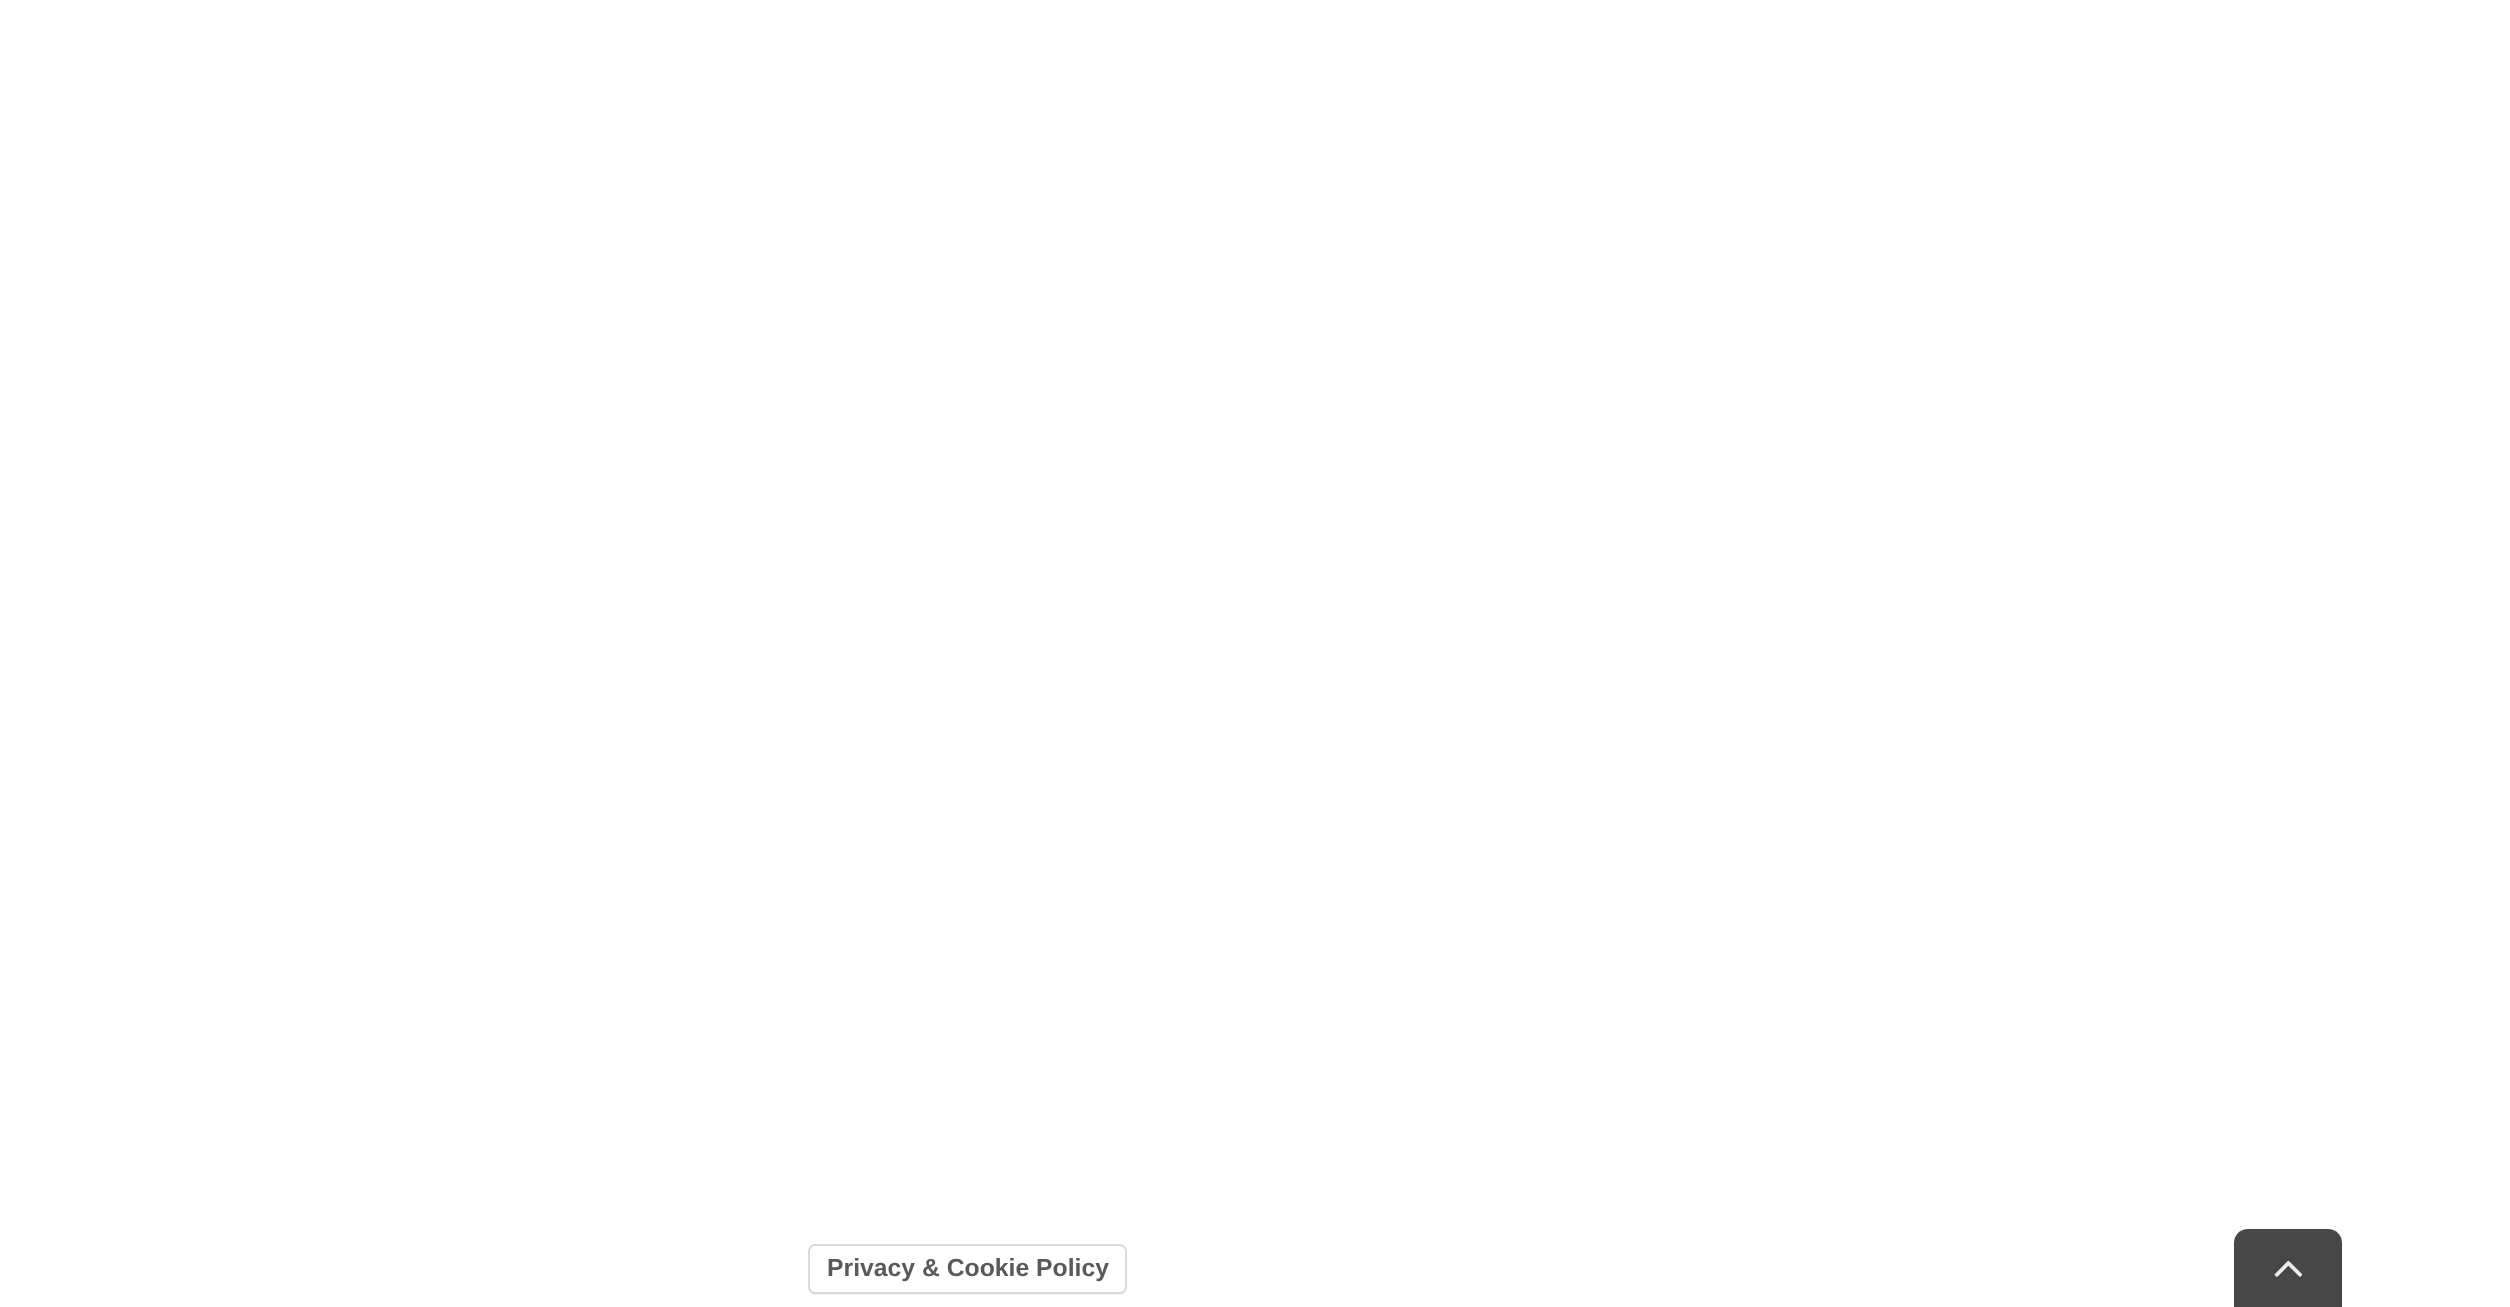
async function draw(canvas) {
	canvas.width = 2510;
	canvas.height = 1307;
	const c = canvas.getContext('2d');
	c.miterLimit = 4;
	c.fontKerning = 'normal';
	async function loadImage(src) {
		const img = new Image();
		img.src = src;
		await img.decode();
		return img;
	}

	c.fillStyle = '#fff';
	c.fillRect(0, 0, 2510, 1307);
	c.fillStyle = '#00000026';
	c.filter = 'blur(1px)';
	c.beginPath();
	c.roundRect(810, 1249, 315, 45, 5);
	c.fill();
	c.filter = 'none';
	c.fillStyle = '#fff';
	c.beginPath();
	c.roundRect(808, 1244, 319, 50, 7);
	c.fill();
	c.beginPath();
	c.roundRect(809, 1245, 317, 48, 6);
	c.strokeStyle = '#00000026';
	c.lineWidth = 2;
	c.stroke();
	c.font = 'bold 24.75px Liberation Sans';
	c.fillStyle = '#595959';
	c.fillText('Privacy & Cookie Policy', 827, 1276);
	c.fillStyle = '#474747';
	c.beginPath();
	c.roundRect(2234, 1229, 108, 78, [14, 14, 0, 0]);
	c.fill();
	c.drawImage(await loadImage('img1.png'), 2274, 1260, 29, 17);
}

draw(document.querySelector('canvas'));
